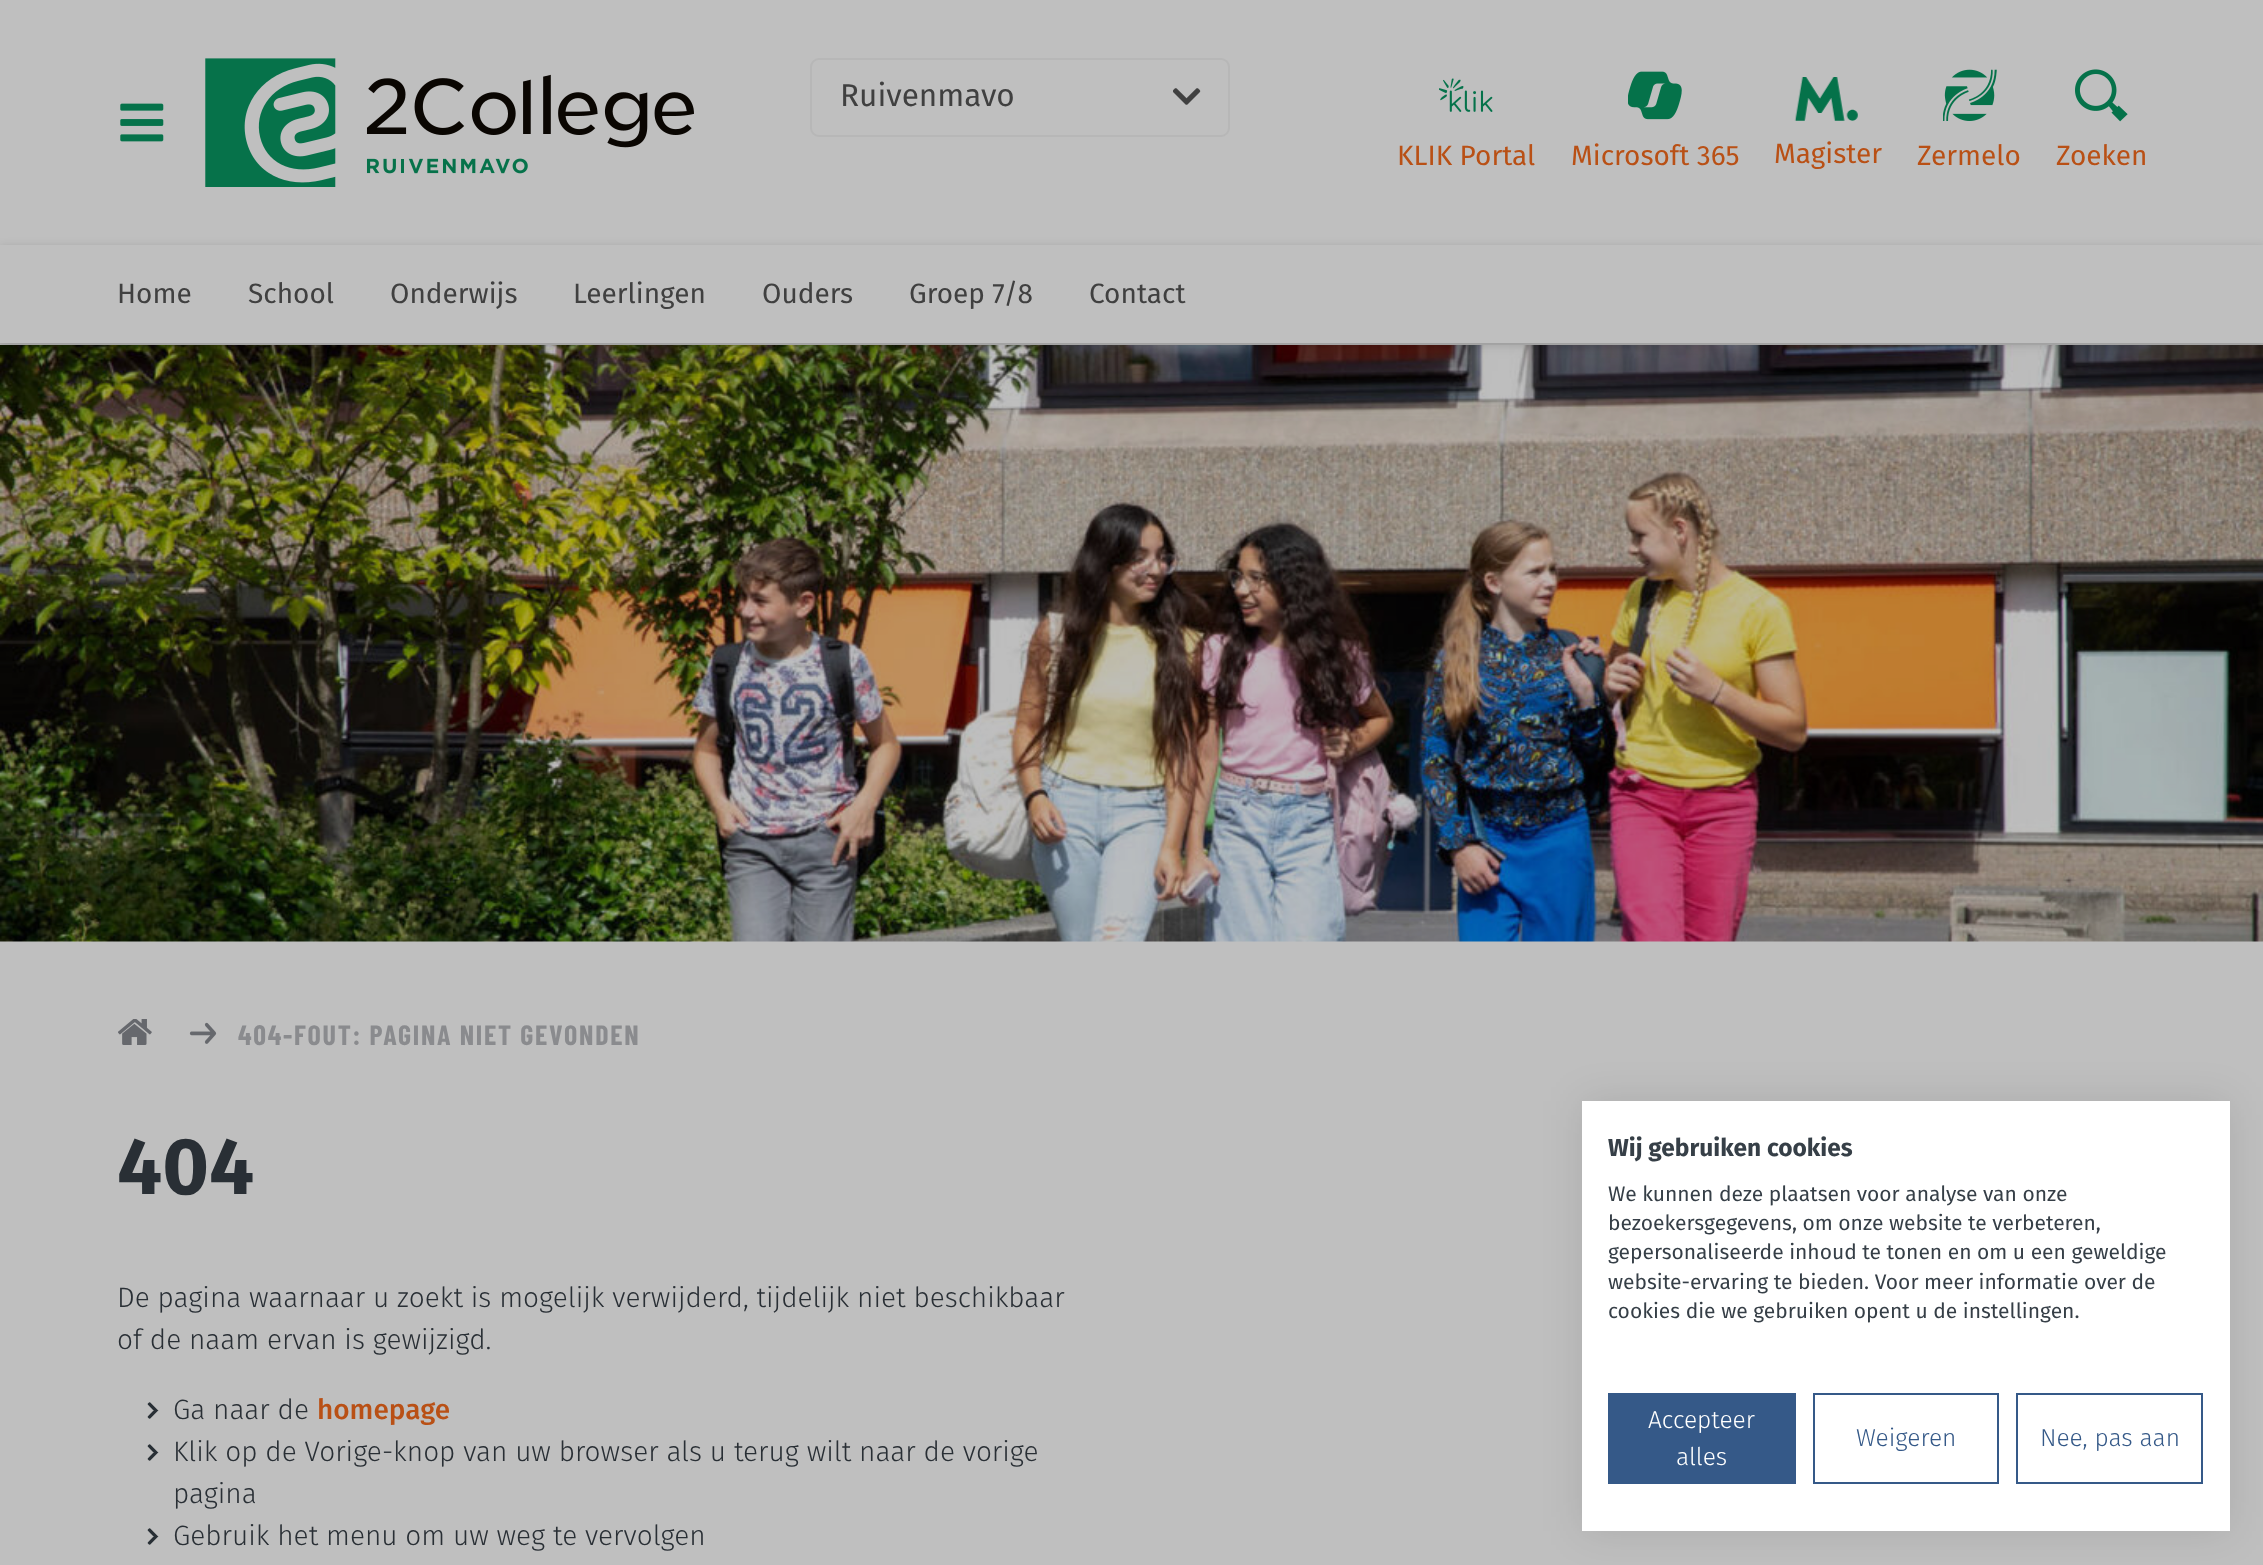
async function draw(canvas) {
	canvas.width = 2263;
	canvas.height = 1565;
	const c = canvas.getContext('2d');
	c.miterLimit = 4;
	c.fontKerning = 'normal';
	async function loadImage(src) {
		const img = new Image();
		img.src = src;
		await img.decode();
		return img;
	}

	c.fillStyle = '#bfbfbf';
	c.fillRect(0, 0, 2263, 1565);
	c.fillStyle = '#b3b3b3';
	c.fillRect(0, 343, 2263, 2);
	c.drawImage(await loadImage('img1.png'), 205, 58, 489, 129);
	c.beginPath();
	c.roundRect(811, 59, 418, 77, 8);
	c.strokeStyle = '#b7b7b7';
	c.lineWidth = 2;
	c.stroke();
	c.font = '31.5px Fira Sans';
	c.fillStyle = '#404040';
	c.fillText('Ruivenmavo', 840, 106);
	c.drawImage(await loadImage('img2.png'), 1173, 88, 28, 17);
	c.drawImage(await loadImage('img3.png'), 120, 103, 44, 39);
	c.drawImage(await loadImage('img4.png'), 1439, 78, 54, 34);
	c.font = '28px Fira Sans';
	c.fillStyle = '#b95015';
	c.fillText('KLIK Portal', 1397, 165);
	c.drawImage(await loadImage('img5.png'), 1628, 71, 54, 49);
	c.fillText('Microsoft 365', 1571, 165);
	c.drawImage(await loadImage('img6.png'), 1794, 77, 64, 44);
	c.fillText('Magister', 1774, 163);
	c.drawImage(await loadImage('img7.png'), 1943, 69, 54, 52);
	c.fillText('Zermelo', 1917, 165);
	c.drawImage(await loadImage('img8.png'), 2075, 69, 53, 53);
	c.fillText('Zoeken', 2056, 165);
	c.drawImage(await loadImage('img9.png'), 0, 345, 2263, 597);
	c.save();
	c.beginPath();
	c.moveTo(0, 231);
	c.lineTo(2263, 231);
	c.lineTo(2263, 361);
	c.lineTo(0, 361);
	c.closePath();
	c.moveTo(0, 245);
	c.lineTo(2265, 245);
	c.lineTo(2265, 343);
	c.lineTo(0, 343);
	c.closePath();
	c.clip('evenodd');
	c.fillStyle = '#00000026';
	c.filter = 'blur(5px)';
	c.beginPath();
	c.rect(0, 247, 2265, 98);
	c.fill();
	c.filter = 'none';
	c.restore();
	c.fillStyle = '#404040';
	for (const [text, x, y] of [
		['Home', 117, 303],
		['School', 248, 303],
		['Onderwijs', 390, 303],
		['Leerlingen', 573, 303],
		['Ouders', 762, 303],
		['Groep 7/8', 909, 303],
		['Contact', 1089, 303],
	]) {
		c.fillText(text, x, y);
	}
	c.drawImage(await loadImage('img10.png'), 118, 1019, 34, 26);
	c.drawImage(await loadImage('img11.png'), 189, 1022, 28, 22);
	c.letterSpacing = '1.75px';
	c.font = 'bold 28px Barlow Condensed';
	c.fillStyle = '#8a8b8e';
	c.fillText('404-FOUT: PAGINA NIET GEVONDEN', 238, 1045);
	c.letterSpacing = '0px';
	c.font = 'bold 80px Fira Sans';
	c.fillStyle = '#292f35';
	c.fillText('404', 117, 1194);
	c.font = '300 28px Fira Sans';
	c.fillText('De pagina waarnaar u zoekt is mogelijk verwijderd, tijdelijk niet beschikbaar', 117, 1307);
	c.fillText('of de naam ervan is gewijzigd.', 117, 1349);
	c.drawImage(await loadImage('img12.png'), 147, 1402, 12, 17);
	c.fillText('Ga naar de', 173, 1419);
	c.font = '500 28px Fira Sans';
	c.fillStyle = '#b95015';
	c.fillText('homepage', 317, 1419);
	c.drawImage(await loadImage('img12.png'), 147, 1444, 12, 17);
	c.font = '300 28px Fira Sans';
	c.fillStyle = '#292f35';
	c.fillText('Klik op de Vorige-knop van uw browser als u terug wilt naar de vorige', 173, 1461);
	c.fillText('pagina', 173, 1503);
	c.drawImage(await loadImage('img12.png'), 147, 1528, 12, 17);
	c.fillText('Gebruik het menu om uw weg te vervolgen', 173, 1545);
	c.fillStyle = '#0000001a';
	c.filter = 'blur(21px)';
	c.beginPath();
	c.rect(1582, 1101, 648, 430);
	c.fill();
	c.filter = 'none';
	c.fillStyle = '#fff';
	c.fillRect(1582, 1101, 648, 430);
	c.font = 'bold 24.5px Fira Sans';
	c.fillStyle = '#363f47';
	c.fillText('Wij gebruiken cookies', 1608, 1156);
	c.font = '21px Fira Sans';
	for (const [text, x, y] of [
		['We kunnen deze plaatsen voor analyse van onze', 1608, 1201],
		['bezoekersgegevens, om onze website te verbeteren,', 1608, 1230],
		['gepersonaliseerde inhoud te tonen en om u een geweldige', 1608, 1259],
		['website-ervaring te bieden. Voor meer informatie over de', 1608, 1289],
		['cookies die we gebruiken opent u de instellingen.', 1608, 1318],
	]) {
		c.fillText(text, x, y);
	}
	c.fillStyle = '#355988';
	c.fillRect(1608, 1393, 188, 91);
	c.font = '300 24.5px Fira Sans';
	c.fillStyle = '#fff';
	c.fillText('Accepteer', 1648, 1428);
	c.fillText('alles', 1676, 1465);
	c.strokeStyle = '#355988';
	c.strokeRect(1814, 1394, 184, 89);
	c.fillStyle = '#355988';
	c.fillText('Weigeren', 1856, 1446);
	c.strokeRect(2017, 1394, 185, 89);
	c.fillText('Nee, pas aan', 2040, 1446);
}

draw(document.querySelector('canvas'));
